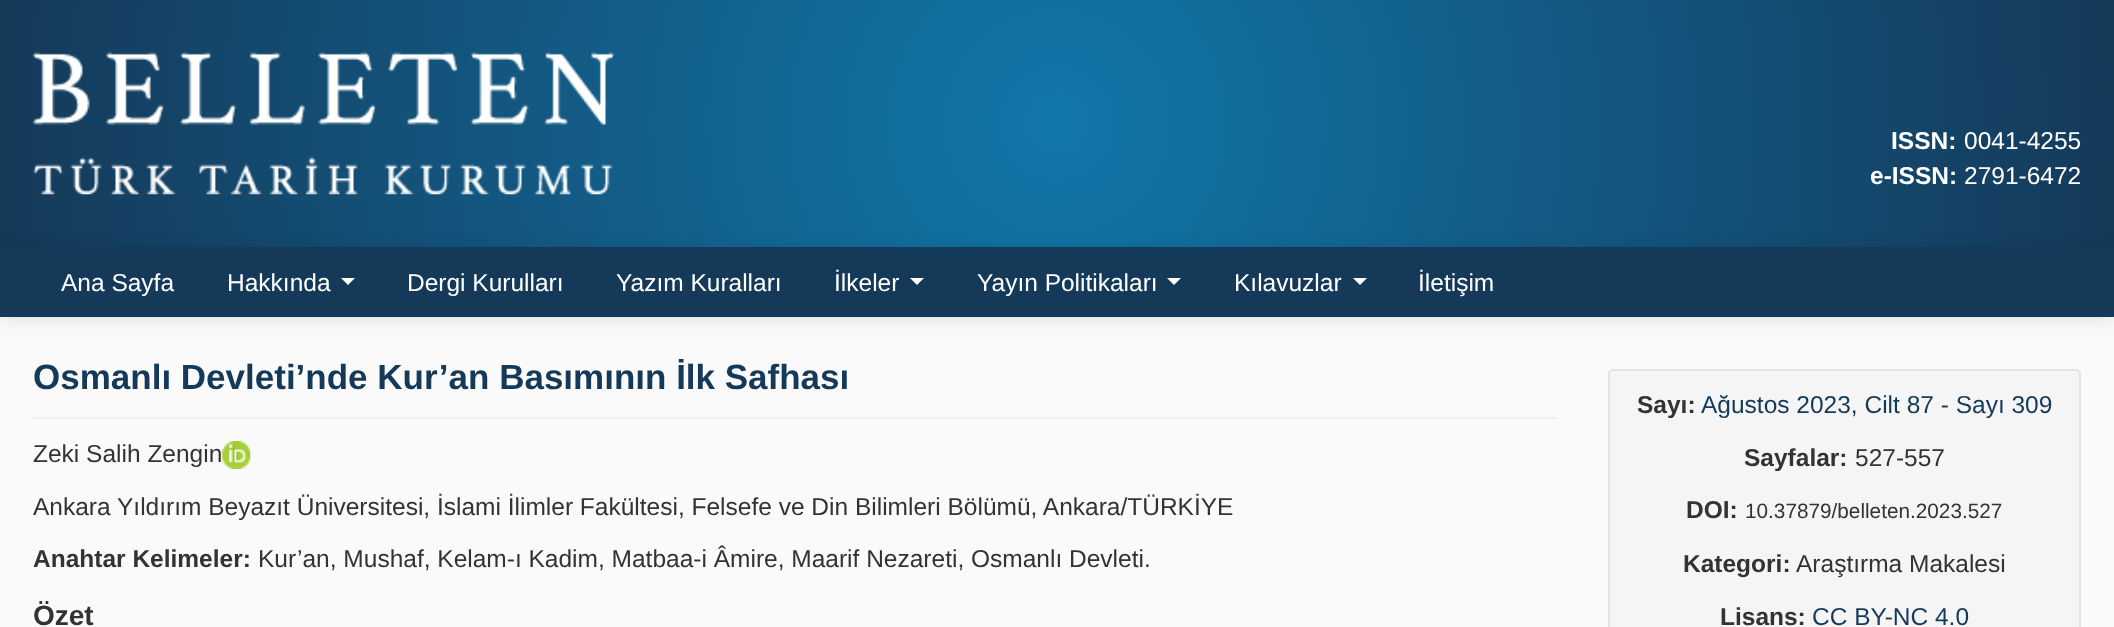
async function draw(canvas) {
	canvas.width = 2114;
	canvas.height = 627;
	const c = canvas.getContext('2d');
	c.miterLimit = 4;
	c.fontKerning = 'normal';
	async function loadImage(src) {
		const img = new Image();
		img.src = src;
		await img.decode();
		return img;
	}
	let gradient;

	c.fillStyle = '#fafafa';
	c.fillRect(0, 0, 2114, 627);
	gradient = c.createRadialGradient(1057, 123, 0, 1057, 123, 1064);
	gradient.addColorStop(0, '#17a');
	gradient.addColorStop(1, '#153959');
	c.fillStyle = gradient;
	c.fillRect(0, 0, 2114, 247);
	c.drawImage(await loadImage('img1.png'), 33, 52, 582, 143);
	c.font = 'bold 24.5px Liberation Sans';
	c.fillStyle = '#fff';
	c.fillText('ISSN:', 1891, 149);
	c.font = '24.5px Liberation Sans';
	c.fillText('0041-4255', 1964, 149);
	c.font = 'bold 24.5px Liberation Sans';
	c.fillText('e-ISSN:', 1870, 184);
	c.font = '24.5px Liberation Sans';
	c.fillText('2791-6472', 1964, 184);
	c.fillStyle = '#0000001a';
	c.filter = 'blur(9px)';
	c.beginPath();
	c.rect(0, 249, 2114, 70);
	c.fill();
	c.filter = 'none';
	c.fillStyle = '#153959';
	c.fillRect(0, 247, 2114, 70);
	c.fillStyle = '#fff';
	c.fillText('Ana Sayfa', 61, 291);
	c.fillText('Hakkında', 227, 291);
	c.fillStyle = '#fefefe';
	c.beginPath();
	c.moveTo(341, 278);
	c.lineTo(355, 278);
	c.lineTo(348, 285);
	c.closePath();
	c.fill();
	c.fillStyle = '#fff';
	for (const [text, x, y] of [
		['Dergi Kurulları', 407, 291],
		['Yazım Kuralları', 616, 291],
		['İlkeler', 834, 291],
	]) {
		c.fillText(text, x, y);
	}
	c.fillStyle = '#fefefe';
	c.beginPath();
	c.moveTo(910, 278);
	c.lineTo(924, 278);
	c.lineTo(917, 285);
	c.closePath();
	c.fill();
	c.fillStyle = '#fff';
	c.fillText('Yayın Politikaları', 977, 291);
	c.fillStyle = '#fefefe';
	c.beginPath();
	c.moveTo(1167, 278);
	c.lineTo(1181, 278);
	c.lineTo(1174, 285);
	c.closePath();
	c.fill();
	c.fillStyle = '#fff';
	c.fillText('Kılavuzlar', 1234, 291);
	c.fillStyle = '#fefefe';
	c.beginPath();
	c.moveTo(1353, 278);
	c.lineTo(1367, 278);
	c.lineTo(1360, 285);
	c.closePath();
	c.fill();
	c.fillStyle = '#fff';
	c.fillText('İletişim', 1418, 291);
	c.fillStyle = '#eee';
	c.fillRect(33, 417, 1523, 2);
	c.font = 'bold 35px Liberation Sans';
	c.fillStyle = '#153959';
	c.fillText('Osmanlı Devleti’nde Kur’an Basımının İlk Safhası', 33, 389);
	c.font = '24.5px Liberation Sans';
	c.fillStyle = '#333';
	c.fillText('Zeki Salih Zengin', 33, 462);
	c.drawImage(await loadImage('img2.png'), 222, 441, 29, 28);
	c.fillText('Ankara Yıldırım Beyazıt Üniversitesi, İslami İlimler Fakültesi, Felsefe ve Din Bilimleri Bölümü, Ankara/TÜRKİYE', 33, 515);
	c.font = 'bold 24.5px Liberation Sans';
	c.fillText('Anahtar Kelimeler:', 33, 567);
	c.font = '24.5px Liberation Sans';
	c.fillText('Kur’an, Mushaf, Kelam-ı Kadim, Matbaa-i Âmire, Maarif Nezareti, Osmanlı Devleti.', 258, 567);
	c.font = 'bold 28px Liberation Sans';
	c.fillText('Özet', 33, 625);
	c.fillStyle = '#f5f5f5';
	c.beginPath();
	c.roundRect(1609, 370, 471, 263, 4);
	c.fill();
	c.strokeStyle = '#e3e3e3';
	c.lineWidth = 2;
	c.stroke();
	c.font = 'bold 24.5px Liberation Sans';
	c.fillStyle = '#333';
	c.fillText('Sayı:', 1637, 413);
	c.font = '24.5px Liberation Sans';
	c.fillStyle = '#153959';
	c.fillText('Ağustos 2023, Cilt 87 - Sayı 309', 1701, 413);
	c.font = 'bold 24.5px Liberation Sans';
	c.fillStyle = '#333';
	c.fillText('Sayfalar:', 1744, 466);
	c.font = '24.5px Liberation Sans';
	c.fillText('527-557', 1855, 466);
	c.font = 'bold 24.5px Liberation Sans';
	c.fillText('DOI:', 1686, 518);
	c.font = '20.75px Liberation Sans';
	c.fillText('10.37879/belleten.2023.527', 1745, 518);
	c.font = 'bold 24.5px Liberation Sans';
	c.fillText('Kategori:', 1683, 572);
	c.font = '24.5px Liberation Sans';
	c.fillText('Araştırma Makalesi', 1796, 572);
	c.font = 'bold 24.5px Liberation Sans';
	c.fillText('Lisans:', 1720, 625);
	c.font = '24.5px Liberation Sans';
	c.fillStyle = '#153959';
	c.fillText('CC BY-NC 4.0', 1812, 625);
}

draw(document.querySelector('canvas'));
